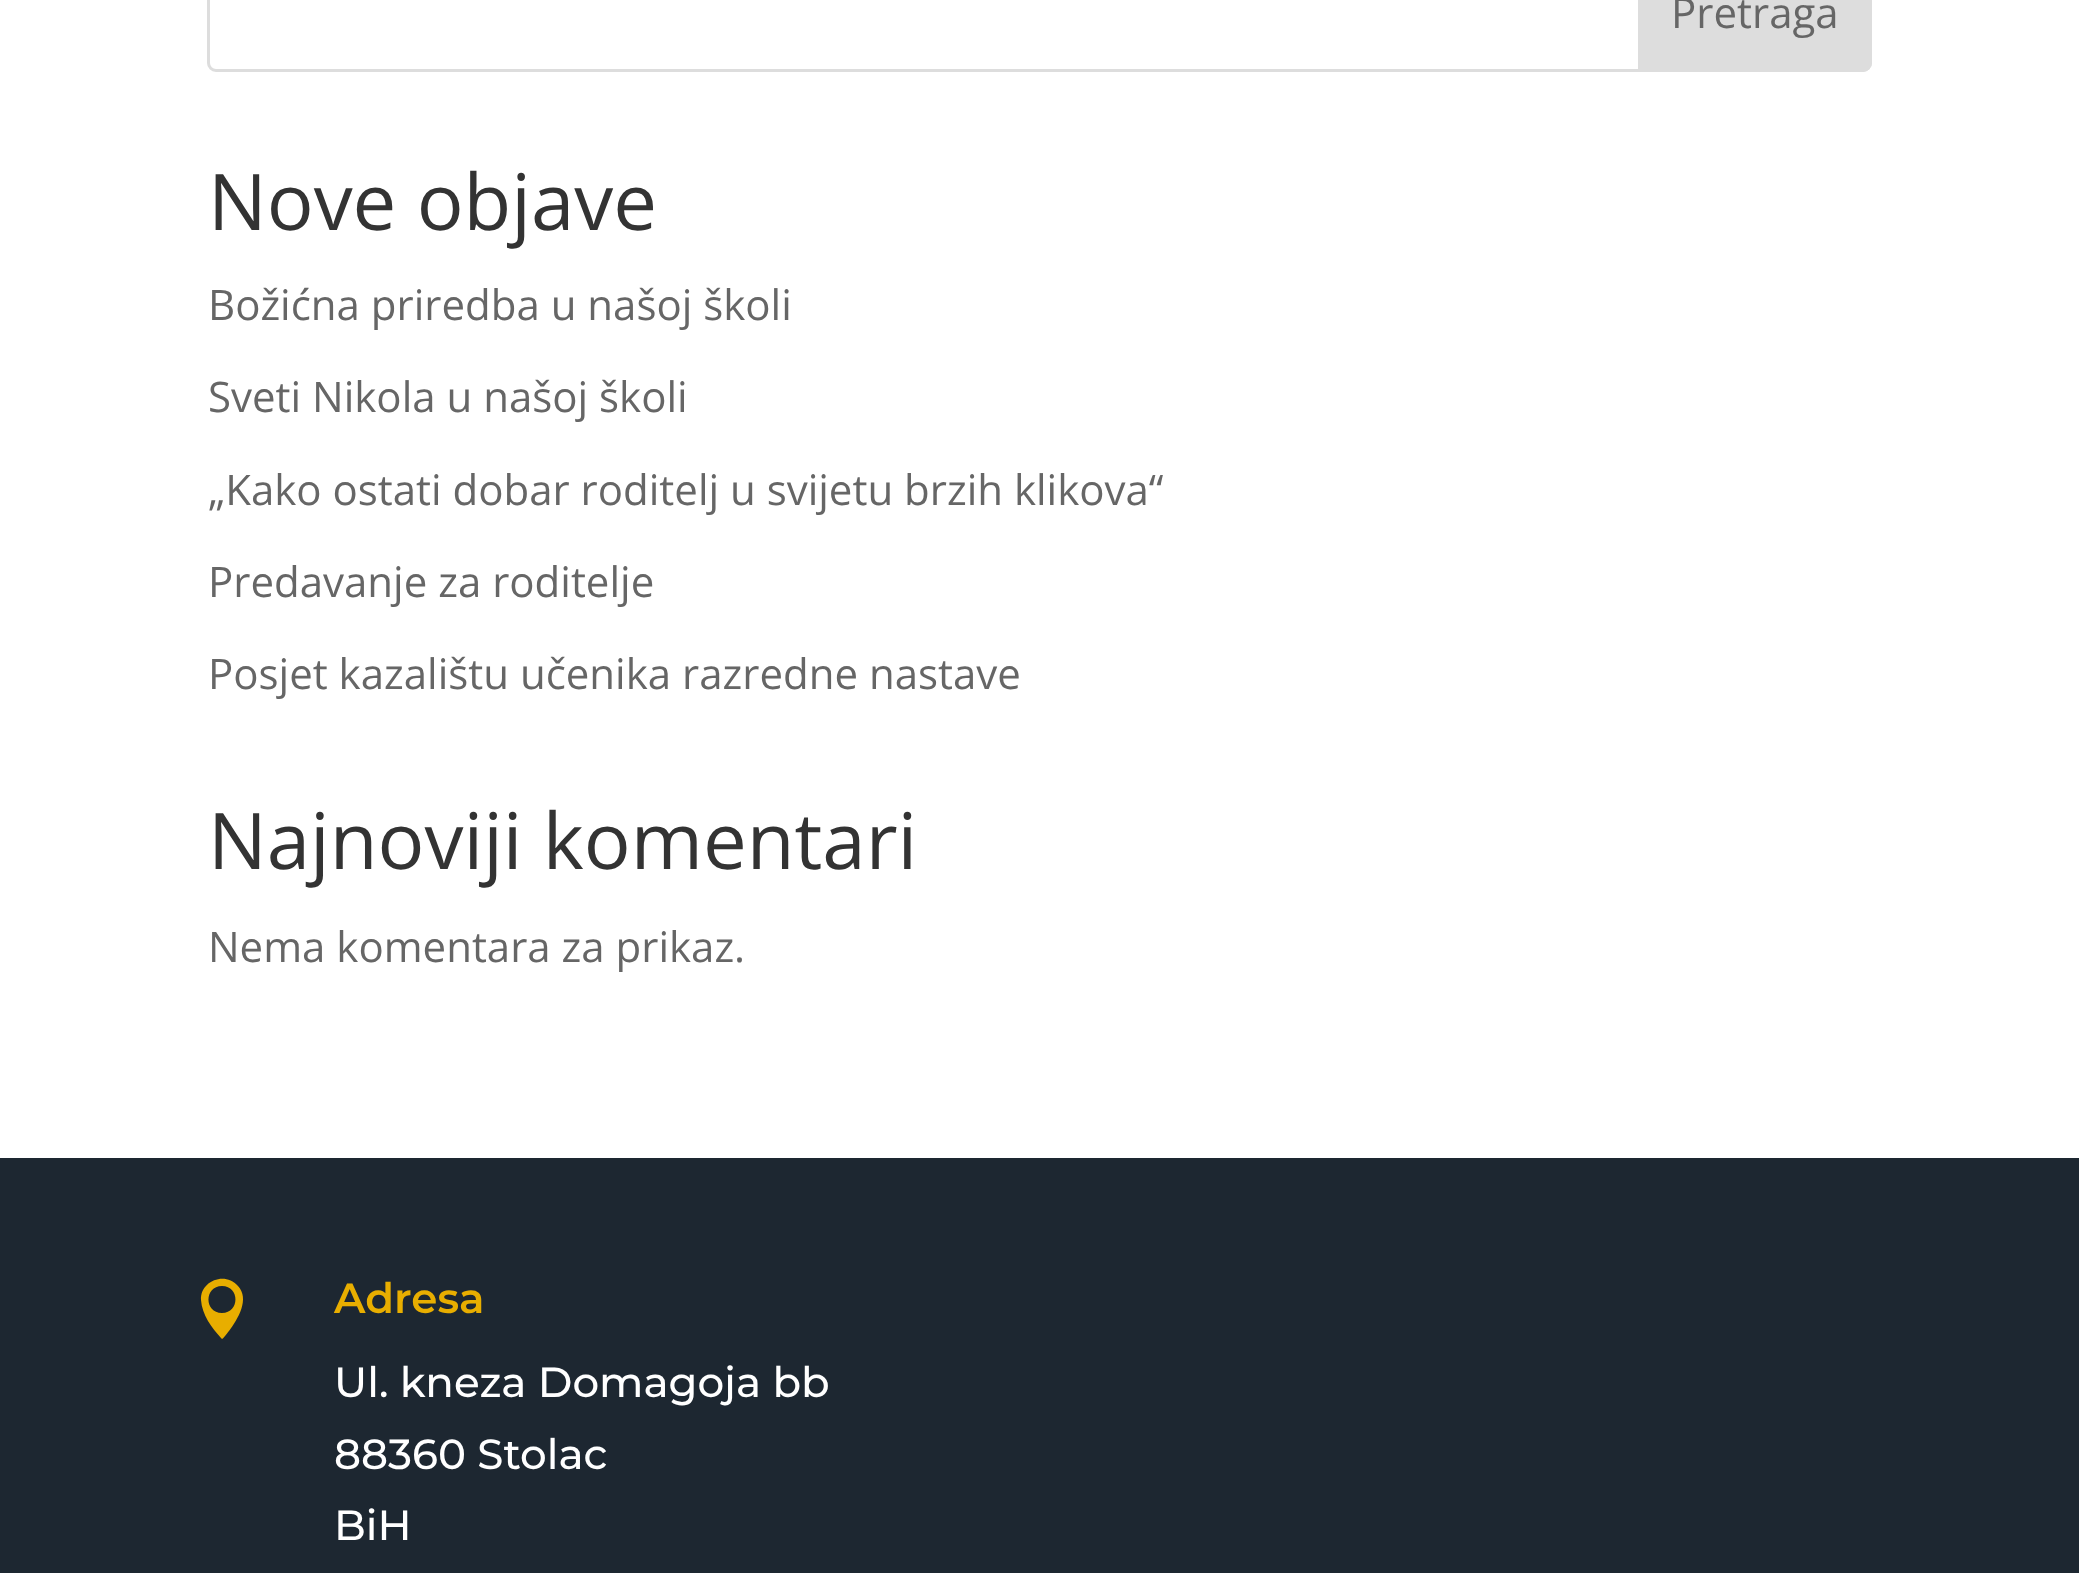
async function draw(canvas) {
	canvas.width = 2079;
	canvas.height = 1573;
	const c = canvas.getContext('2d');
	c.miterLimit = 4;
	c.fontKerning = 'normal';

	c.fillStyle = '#fff';
	c.fillRect(0, 0, 2079, 1573);
	c.beginPath();
	c.roundRect(208.5, -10.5, 1662, 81, 7.5);
	c.strokeStyle = '#ddd';
	c.lineWidth = 3;
	c.stroke();
	c.fillStyle = '#ddd';
	c.beginPath();
	c.moveTo(1639.5, -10.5);
	c.lineTo(1863, -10.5);
	c.bezierCurveTo(1867, -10.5, 1870.5, -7, 1870.5, -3);
	c.lineTo(1870.5, 63);
	c.bezierCurveTo(1870.5, 67, 1867, 70.5, 1863, 70.5);
	c.lineTo(1639.5, 70.5);
	c.closePath();
	c.fill();
	c.stroke();
	c.font = '42px Open Sans';
	c.fillStyle = '#666';
	c.fillText('Pretraga', 1671, 28);
	c.font = '78px Open Sans';
	c.fillStyle = '#333';
	c.fillText('Nove objave', 208, 230);
	c.font = '42px Open Sans';
	c.fillStyle = '#666';
	for (const [text, x, y] of [
		['Božićna priredba u našoj školi', 208, 320],
		['Sveti Nikola u našoj školi', 208, 412],
		['„Kako ostati dobar roditelj u svijetu brzih klikova“', 208, 505],
		['Predavanje za roditelje', 208, 597],
		['Posjet kazalištu učenika razredne nastave', 208, 689],
	]) {
		c.fillText(text, x, y);
	}
	c.font = '78px Open Sans';
	c.fillStyle = '#333';
	c.fillText('Najnoviji komentari', 208, 869);
	c.font = '42px Open Sans';
	c.fillStyle = '#666';
	c.fillText('Nema komentara za prikaz.', 208, 962);
	c.fillStyle = '#1d2731';
	c.fillRect(0, 1158, 2079, 415);
	c.fillStyle = '#e8ae00';
	c.beginPath();
	c.moveTo(221, 1338);
	c.lineTo(222, 1339);
	c.bezierCurveTo(224, 1338, 228, 1332, 229, 1331);
	c.bezierCurveTo(238, 1319, 250, 1299, 238, 1286);
	c.bezierCurveTo(225, 1271, 200, 1281, 201, 1300);
	c.bezierCurveTo(202, 1315, 212, 1328, 221, 1338);
	c.closePath();
	c.moveTo(222, 1286);
	c.bezierCurveTo(240, 1286, 240, 1313, 222, 1313);
	c.bezierCurveTo(204, 1313, 204, 1286, 222, 1286);
	c.closePath();
	c.fill();
	c.font = '100 42px Montserrat';
	c.fillText('Adresa', 334, 1313);
	c.font = '100 42px "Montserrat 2"';
	c.fillStyle = '#fff';
	for (const [text, x, y] of [
		['Ul. kneza Domagoja bb', 334, 1397],
		['88360 Stolac', 334, 1469],
		['BiH', 334, 1540],
	]) {
		c.fillText(text, x, y);
	}
}

draw(document.querySelector('canvas'));
